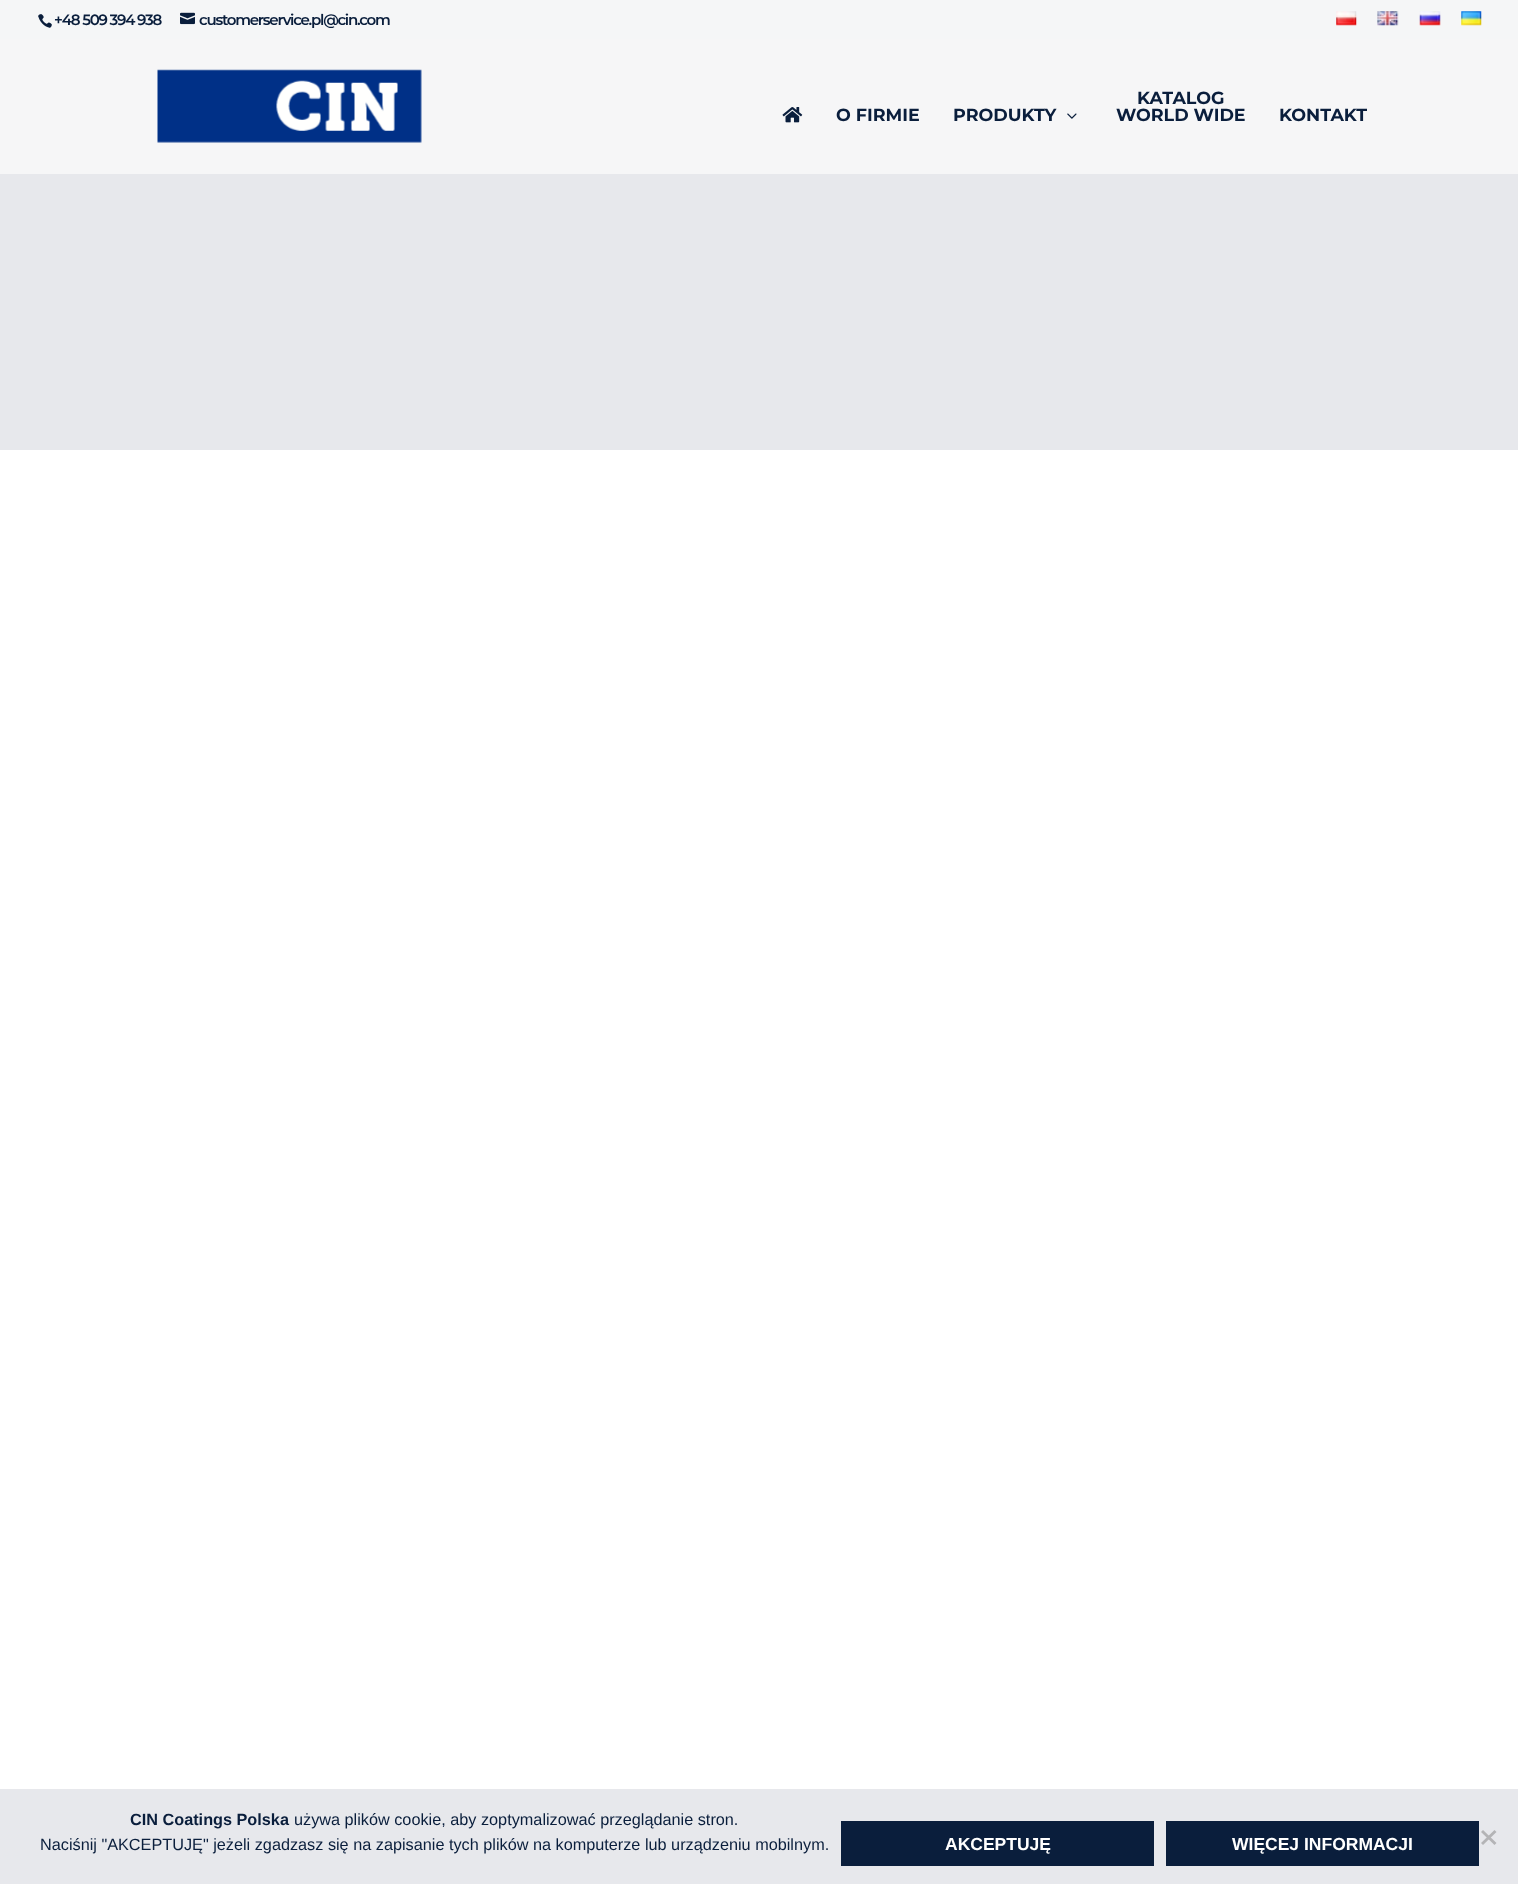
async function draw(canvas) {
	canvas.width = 1518;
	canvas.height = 1884;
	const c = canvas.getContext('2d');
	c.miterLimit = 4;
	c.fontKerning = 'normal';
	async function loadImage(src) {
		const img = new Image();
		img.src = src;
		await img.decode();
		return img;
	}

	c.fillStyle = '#fff';
	c.fillRect(0, 0, 1518, 1884);
	c.fillStyle = '#f5f6f7';
	c.fillRect(0, 0, 1518, 39);
	c.drawImage(await loadImage('img1.png'), 38, 14, 14, 14);
	c.letterSpacing = '-1.25px';
	c.font = '600 15px Montserrat';
	c.fillStyle = '#0a1e3c';
	c.fillText('+48 509 394 938', 54, 25);
	c.drawImage(await loadImage('img2.png'), 180, 12, 15, 13);
	c.fillText('customerservice.pl@cin.com', 199, 25);
	c.drawImage(await loadImage('img3.png'), 1336, 11, 21, 15);
	c.drawImage(await loadImage('img4.png'), 1377, 11, 22, 15);
	c.drawImage(await loadImage('img5.png'), 1419, 11, 22, 15);
	c.drawImage(await loadImage('img6.png'), 1461, 11, 21, 15);
	c.fillStyle = '#f6f6f7';
	c.fillRect(0, 39, 1518, 135);
	c.drawImage(await loadImage('img7.png'), 157, 69, 265, 74);
	c.drawImage(await loadImage('img8.png'), 782, 107, 21, 16);
	c.letterSpacing = '0px';
	c.font = 'bold 17.5px Montserrat';
	c.fillStyle = '#0a1e3c';
	c.fillText('O FIRMIE', 836, 121);
	c.fillText('PRODUKTY', 953, 121);
	c.drawImage(await loadImage('img9.png'), 1067, 113, 10, 6);
	for (const [text, x, y] of [
		['KATALOG', 1137, 104],
		['WORLD WIDE', 1116, 121],
		['KONTAKT', 1279, 121],
	]) {
		c.fillText(text, x, y);
	}
	c.fillStyle = '#e7e8ec';
	c.fillRect(0, 174, 1518, 276);
	c.fillRect(0, 1789, 1518, 95);
	c.font = 'bold 16.25px Liberation Sans';
	c.fillStyle = '#0a1e3c';
	c.fillText('CIN Coatings Polska', 130, 1825);
	c.font = '16.25px Liberation Sans';
	c.fillText('używa plików cookie, aby zoptymalizować przeglądanie stron.', 294, 1825);
	c.fillText('Naciśnij "AKCEPTUJĘ" jeżeli zgadzasz się na zapisanie tych plików na komputerze lub urządzeniu mobilnym.', 40, 1850);
	c.fillRect(841, 1821, 313, 45);
	c.font = 'bold 17.5px Liberation Sans';
	c.fillStyle = '#fff';
	c.fillText('AKCEPTUJĘ', 945, 1850);
	c.fillStyle = '#0a1e3c';
	c.fillRect(1166, 1821, 313, 45);
	c.fillStyle = '#fff';
	c.fillText('WIĘCEJ INFORMACJI', 1232, 1850);
	c.fillStyle = '#b4b4b6';
	c.beginPath();
	c.moveTo(1494.5, 1830);
	c.lineTo(1496.5, 1832);
	c.lineTo(1483, 1845);
	c.lineTo(1481, 1843);
	c.closePath();
	c.fill();
	c.beginPath();
	c.moveTo(1481, 1832);
	c.lineTo(1483, 1830);
	c.lineTo(1496.5, 1843);
	c.lineTo(1494.5, 1845);
	c.closePath();
	c.fill();
}

draw(document.querySelector('canvas'));
